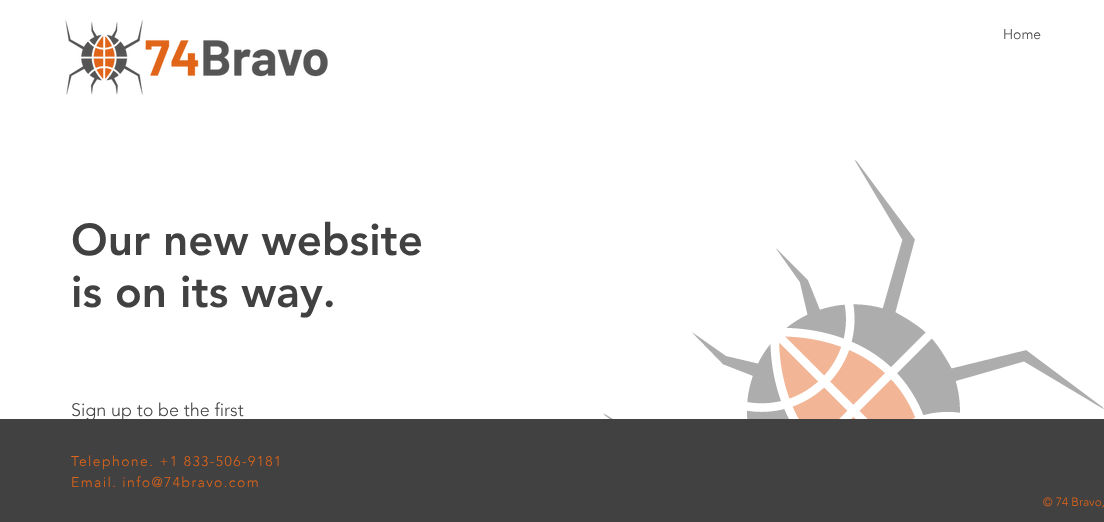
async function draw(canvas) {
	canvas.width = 1104;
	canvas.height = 522;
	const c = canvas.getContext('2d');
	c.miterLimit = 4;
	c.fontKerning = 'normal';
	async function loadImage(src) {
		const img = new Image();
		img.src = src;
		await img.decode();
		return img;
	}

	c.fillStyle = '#fff';
	c.fillRect(0, 0, 1104, 522);
	c.drawImage(await loadImage('img1.png'), 65, 20, 263, 75);
	c.font = '300 14px "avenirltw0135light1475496"';
	c.fillStyle = '#414141';
	c.fillText('Home', 1003, 39);
	c.font = '900 44px "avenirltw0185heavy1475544"';
	c.fillText('Our new website', 71, 255);
	c.fillText('is on its way.', 71, 307);
	c.font = '300 18px "avenirltw0135light1475496"';
	c.fillText('Sign up to be the first', 71, 416);
	c.drawImage(await loadImage('img2.png'), 603, 160, 501, 259);
	c.fillRect(0, 419, 1104, 103);
	c.letterSpacing = '1.4px';
	c.font = '300 14px "avenirltw0135light1475496"';
	c.fillStyle = '#e26518';
	c.fillText('Telephone. +1 833-506-9181', 71, 466);
	c.fillText('Email. info@74bravo.com', 71, 487);
	c.letterSpacing = '0px';
	c.font = '300 12px "avenirltw0135light1475496"';
	c.fillText('© 74 Bravo,', 1043, 506);
}

draw(document.querySelector('canvas'));
